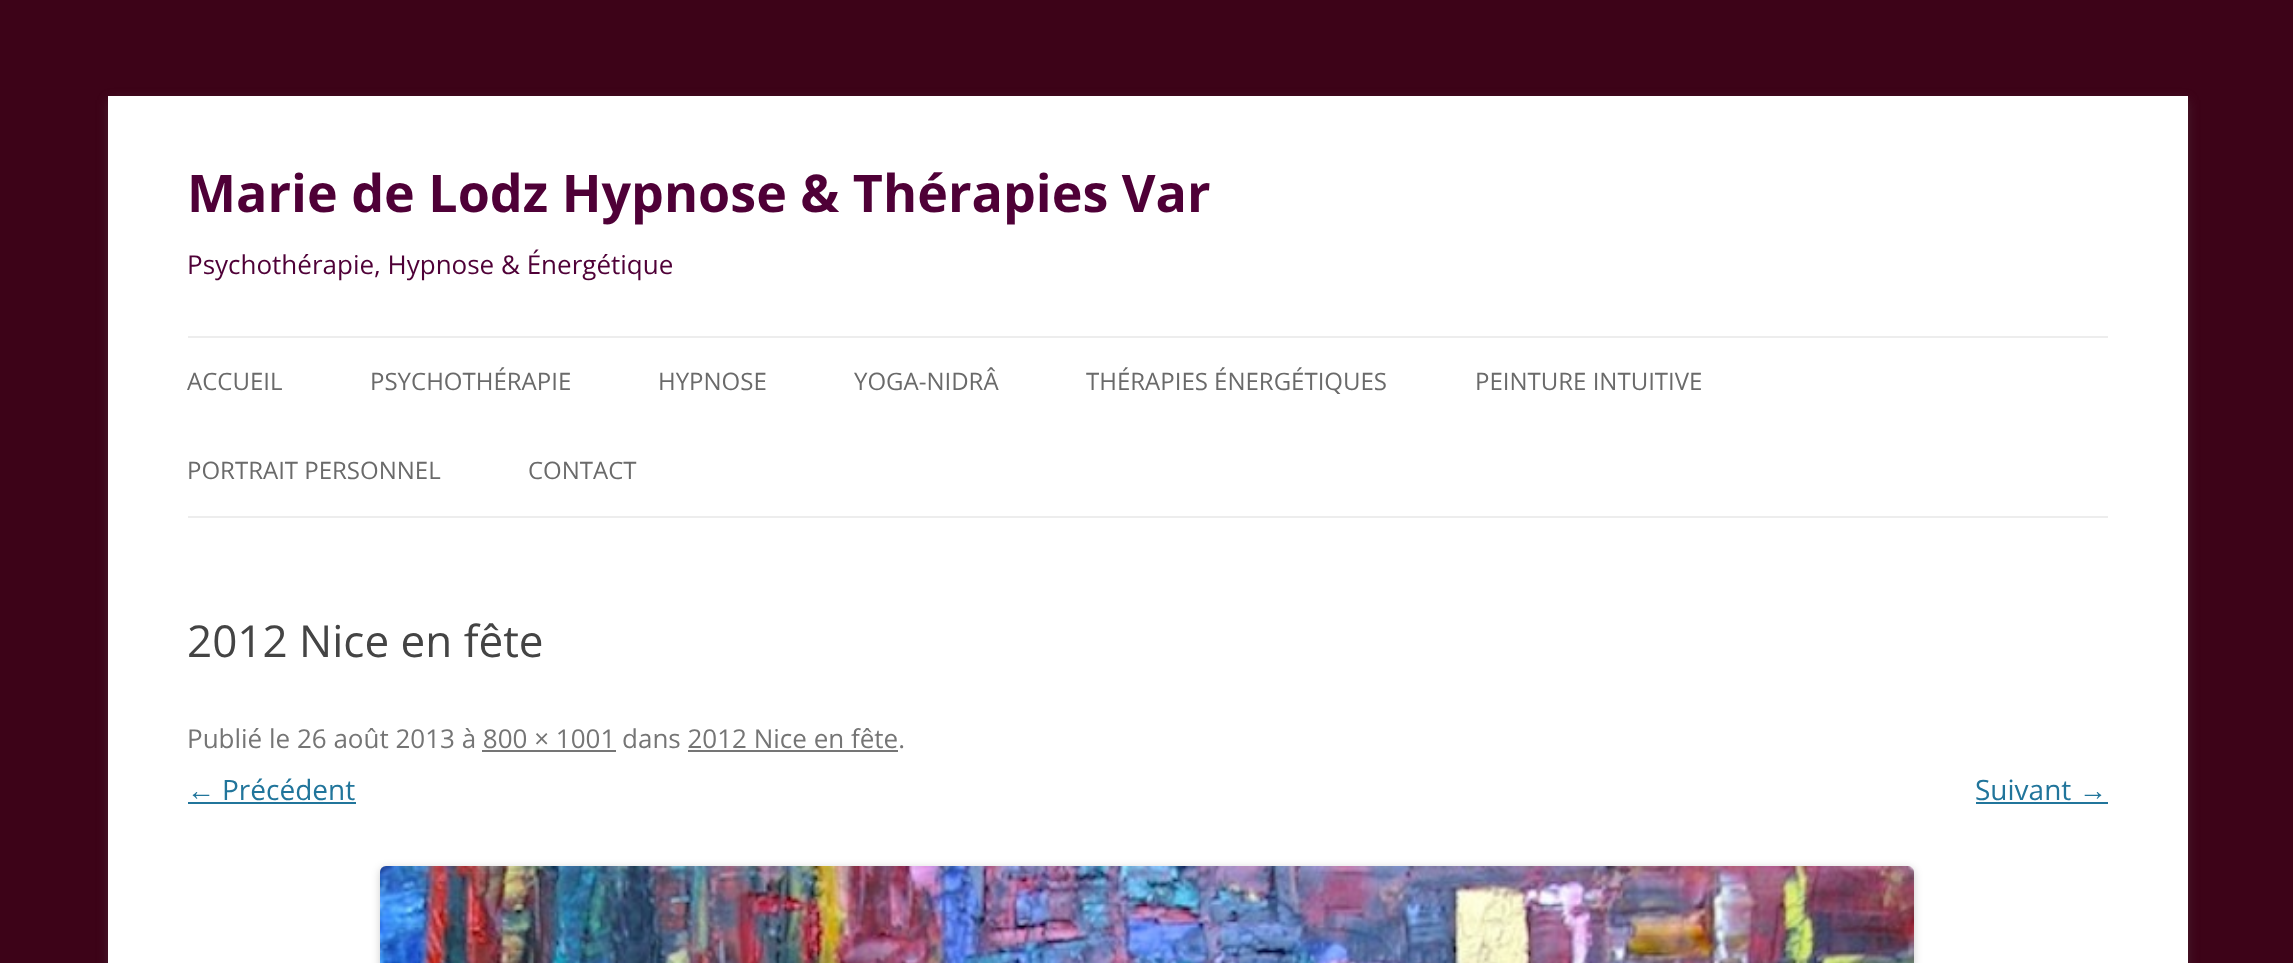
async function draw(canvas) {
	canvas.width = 2293;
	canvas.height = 963;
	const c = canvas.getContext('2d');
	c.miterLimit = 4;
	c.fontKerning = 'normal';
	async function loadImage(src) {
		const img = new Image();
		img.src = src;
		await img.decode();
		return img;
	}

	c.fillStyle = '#3d0318';
	c.fillRect(0, 0, 2293, 963);
	c.fillStyle = '#6464644d';
	c.filter = 'blur(6px)';
	c.beginPath();
	c.rect(108, 100, 2080, 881);
	c.fill();
	c.filter = 'none';
	c.fillStyle = '#fff';
	c.fillRect(108, 96, 2080, 867);
	c.font = 'bold 52px Open Sans';
	c.fillStyle = '#4f0037';
	c.fillText('Marie de Lodz Hypnose & Thérapies Var', 187, 212);
	c.font = '26px Open Sans';
	c.fillText('Psychothérapie, Hypnose & Énergétique', 187, 274);
	c.fillStyle = '#ededed';
	c.fillRect(188, 336, 1920, 2);
	c.fillRect(188, 516, 1920, 2);
	c.font = '24px Open Sans';
	c.fillStyle = '#6a6a6a';
	for (const [text, x, y] of [
		['ACCUEIL', 187, 390],
		['PSYCHOTHÉRAPIE', 370, 390],
		['HYPNOSE', 658, 390],
		['YOGA-NIDRÂ', 854, 390],
		['THÉRAPIES ÉNERGÉTIQUES', 1086, 390],
		['PEINTURE INTUITIVE', 1475, 390],
		['PORTRAIT PERSONNEL', 187, 479],
		['CONTACT', 528, 479],
	]) {
		c.fillText(text, x, y);
	}
	c.font = '44px Open Sans';
	c.fillStyle = '#444';
	c.fillText('2012 Nice en fête', 187, 657);
	c.font = '26px Open Sans';
	c.fillStyle = '#757575';
	c.fillText('Publié le 26 août 2013 à 800 × 1001 dans 2012 Nice en fête.', 187, 748);
	c.fillRect(482, 750, 134, 2);
	c.fillRect(688, 750, 210, 2);
	c.font = '28px Liberation Sans';
	c.fillStyle = '#21759b';
	c.fillText('←', 187, 800);
	c.fillRect(188, 802, 168, 2);
	c.font = '28px Open Sans';
	c.fillText('Précédent', 222, 800);
	c.fillText('Suivant', 1975, 800);
	c.font = '28px Liberation Sans';
	c.fillText('→', 2079, 800);
	c.fillRect(1976, 802, 132, 2);
	c.fillStyle = '#00000033';
	c.filter = 'blur(4px)';
	c.beginPath();
	c.roundRect(380, 868, 1534, 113, 6);
	c.fill();
	c.filter = 'none';
	c.drawImage(await loadImage('img1.png'), 380, 866, 1534, 97);
}

draw(document.querySelector('canvas'));
